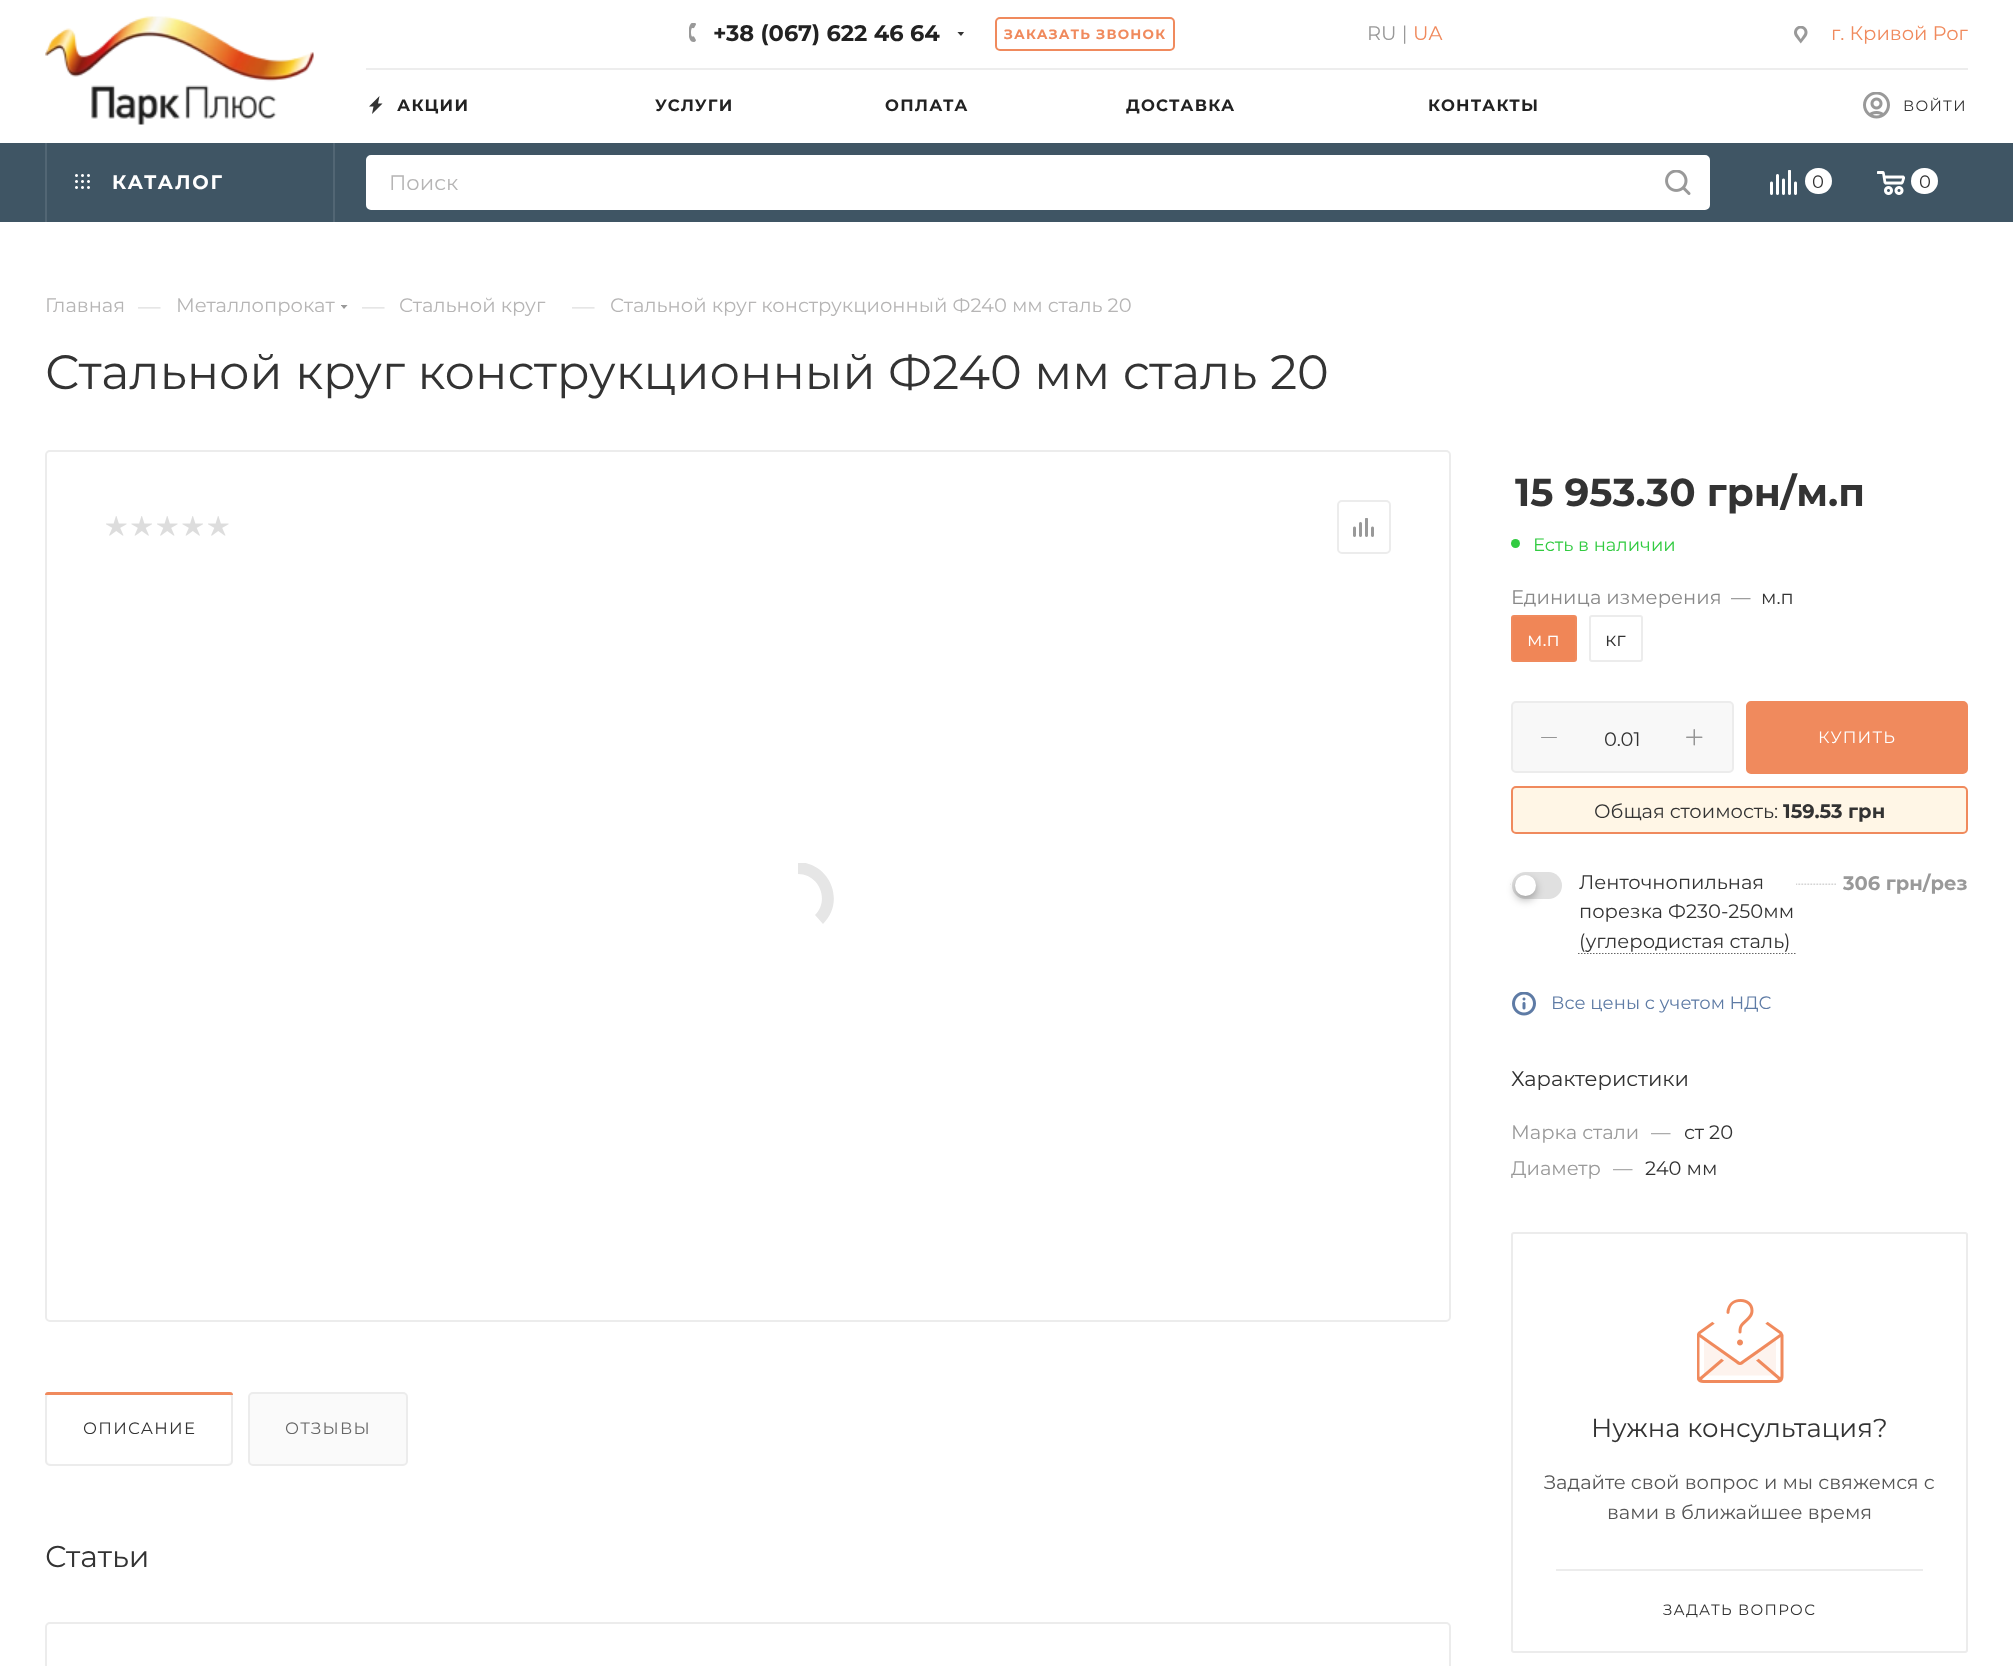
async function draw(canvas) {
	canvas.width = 2013;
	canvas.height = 1666;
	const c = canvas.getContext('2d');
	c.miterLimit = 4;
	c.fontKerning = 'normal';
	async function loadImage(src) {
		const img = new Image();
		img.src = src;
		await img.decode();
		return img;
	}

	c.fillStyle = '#fff';
	c.fillRect(0, 0, 2013, 1666);
	c.drawImage(await loadImage('img1.png'), 45, 16, 269, 109);
	c.drawImage(await loadImage('img2.png'), 689, 23, 7, 19);
	c.font = 'bold 22.5px Montserrat';
	c.fillStyle = '#222';
	c.fillText('+38 (067) 622 46 64', 713, 41);
	c.save();
	c.beginPath();
	c.rect(957, 32, 8, 5);
	c.clip();
	c.fillStyle = '#333';
	c.beginPath();
	c.moveTo(957, 31.5);
	c.lineTo(964.5, 31.5);
	c.lineTo(961, 36);
	c.closePath();
	c.fill('evenodd');
	c.restore();
	c.beginPath();
	c.roundRect(996, 18, 178, 32, 4);
	c.strokeStyle = '#f08a5d';
	c.lineWidth = 2;
	c.stroke();
	c.letterSpacing = '1.25px';
	c.font = 'bold 13.5px Montserrat';
	c.fillStyle = '#f08a5d';
	c.fillText('ЗАКАЗАТЬ ЗВОНОК', 1004, 39);
	c.letterSpacing = '0px';
	c.font = '19.5px Montserrat';
	c.fillStyle = '#999';
	c.fillText('RU |', 1367, 40);
	c.fillStyle = '#f08a5d';
	c.fillText('UA', 1413, 40);
	c.drawImage(await loadImage('img3.png'), 1794, 26, 14, 18);
	c.fillText('г. Кривой Рог', 1831, 40);
	c.fillStyle = '#ededed';
	c.fillRect(366, 68, 1602, 2);
	c.fillStyle = '#333';
	c.beginPath();
	c.moveTo(379.5, 96);
	c.lineTo(369, 106.5);
	c.lineTo(373.5, 106.5);
	c.lineTo(372, 114);
	c.lineTo(382.5, 103.5);
	c.lineTo(378, 103.5);
	c.closePath();
	c.fill('evenodd');
	c.letterSpacing = '1.25px';
	c.font = 'bold 16.5px Montserrat';
	c.fillStyle = '#222';
	for (const [text, x, y] of [
		['АКЦИИ', 397, 111],
		['УСЛУГИ', 655, 111],
		['ОПЛАТА', 885, 111],
		['ДОСТАВКА', 1126, 111],
		['КОНТАКТЫ', 1428, 111],
	]) {
		c.fillText(text, x, y);
	}
	c.drawImage(await loadImage('img4.png'), 1863, 92, 27, 27);
	c.font = '15px Montserrat';
	c.fillStyle = '#333';
	c.fillText('ВОЙТИ', 1903, 111);
	for (const [x, y, w, h, color] of [
		[0, 143, 2013, 79, '#3f5564'],
		[333, 143, 2, 79, '#526674'],
		[45, 143, 2, 79, '#526674'],
	]) {
		c.fillStyle = color;
		c.fillRect(x, y, w, h);
	}
	c.drawImage(await loadImage('img5.png'), 75, 174, 15, 15);
	c.letterSpacing = '1.75px';
	c.font = 'bold 19.5px Montserrat';
	c.fillStyle = '#fff';
	c.fillText('КАТАЛОГ', 112, 189);
	c.beginPath();
	c.roundRect(367, 156, 1342, 53, 4);
	c.fill();
	c.strokeStyle = '#fff';
	c.stroke();
	c.letterSpacing = '0px';
	c.font = '21px Montserrat';
	c.fillStyle = '#b6b5b5';
	c.fillText('Поиск', 389, 190);
	c.drawImage(await loadImage('img6.png'), 1665, 170, 26, 25);
	c.drawImage(await loadImage('img7.png'), 1770, 170, 27, 25);
	c.fillStyle = '#fff';
	c.beginPath();
	c.roundRect(1805, 168, 27, 26, 13);
	c.fill();
	c.font = '18px Montserrat';
	c.fillStyle = '#333';
	c.fillText('0', 1812, 188);
	c.drawImage(await loadImage('img8.png'), 1877, 171, 28, 24);
	c.fillStyle = '#fff';
	c.beginPath();
	c.roundRect(1911, 168, 27, 26, 13);
	c.fill();
	c.fillStyle = '#333';
	c.fillText('0', 1919, 188);
	c.font = '19.5px Montserrat';
	c.fillStyle = '#b6b5b5';
	c.fillText('Главная', 45, 312);
	c.font = '22.5px Montserrat';
	c.fillStyle = '#ddd';
	c.fillText('—', 138, 314);
	c.font = '19.5px Montserrat';
	c.fillStyle = '#b6b5b5';
	c.fillText('Металлопрокат', 176, 312);
	c.save();
	c.beginPath();
	c.rect(341, 305, 7, 5);
	c.clip();
	c.fillStyle = '#999';
	c.beginPath();
	c.moveTo(340.5, 304.5);
	c.lineTo(348, 304.5);
	c.lineTo(344, 309);
	c.closePath();
	c.fill('evenodd');
	c.restore();
	c.font = '22.5px Montserrat';
	c.fillStyle = '#ddd';
	c.fillText('—', 362, 314);
	c.font = '19.5px Montserrat';
	c.fillStyle = '#b6b5b5';
	c.fillText('Стальной круг', 399, 312);
	c.font = '22.5px Montserrat';
	c.fillStyle = '#ddd';
	c.fillText('—', 572, 314);
	c.font = '19.5px Montserrat';
	c.fillStyle = '#b6b5b5';
	c.fillText('Стальной круг конструкционный Ф240 мм сталь 20', 610, 312);
	c.font = '48px Montserrat';
	c.fillStyle = '#333';
	c.fillText('Стальной круг конструкционный Ф240 мм сталь 20', 45, 389);
	c.beginPath();
	c.roundRect(46, 451, 1404, 870, 4);
	c.strokeStyle = '#ececec';
	c.stroke();
	c.drawImage(await loadImage('img9.png'), 106, 516, 21, 20);
	c.drawImage(await loadImage('img10.png'), 131, 516, 21, 20);
	c.drawImage(await loadImage('img9.png'), 157, 516, 21, 20);
	c.drawImage(await loadImage('img10.png'), 182, 516, 21, 20);
	c.drawImage(await loadImage('img9.png'), 208, 516, 21, 20);
	c.beginPath();
	c.roundRect(1338, 501, 52, 52, 4);
	c.stroke();
	c.drawImage(await loadImage('img11.png'), 1353, 518, 21, 19);
	c.save();
	c.beginPath();
	c.rect(762, 863, 72, 72);
	c.clip();
	c.fillStyle = '#e6e6e6';
	c.beginPath();
	c.moveTo(798, 862);
	c.bezierCurveTo(830, 863, 846, 901, 823, 924);
	c.lineTo(815, 915);
	c.bezierCurveTo(830, 900, 819, 874, 798, 874);
	c.closePath();
	c.fill();
	c.restore();
	c.fillStyle = '#fafafa';
	c.beginPath();
	c.roundRect(46, 1393, 186, 72, 4);
	c.fill();
	c.stroke();
	c.fillStyle = '#fff';
	c.beginPath();
	c.roundRect(47, 1394, 184, 70, 5);
	c.fill();
	c.fillStyle = '#f08a5d';
	c.beginPath();
	c.roundRect(45, 1392, 188, 3, [3, 3, 0, 0]);
	c.fill();
	c.letterSpacing = '1.25px';
	c.font = '16.5px Montserrat';
	c.fillStyle = '#333';
	c.fillText('ОПИСАНИЕ', 83, 1434);
	c.fillStyle = '#fafafa';
	c.beginPath();
	c.roundRect(249, 1393, 158, 72, 4);
	c.fill();
	c.stroke();
	c.fillStyle = '#666';
	c.fillText('ОТЗЫВЫ', 285, 1434);
	c.letterSpacing = '0px';
	c.font = '30px Montserrat';
	c.fillStyle = '#333';
	c.fillText('Статьи', 45, 1567);
	c.beginPath();
	c.roundRect(46, 1623, 1404, 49, 4);
	c.stroke();
	c.font = 'bold 39px Montserrat';
	c.fillText('15 953.30 грн/м.п', 1515, 506);
	c.fillStyle = '#32cb41';
	c.beginPath();
	c.arc(1515.5, 543.5, 4.5, 0, 2 * Math.PI);
	c.fill();
	c.font = '18px Montserrat';
	c.fillText('Есть в наличии', 1533, 551);
	c.font = '19.5px Montserrat';
	c.fillStyle = '#888';
	c.fillText('Единица измерения', 1511, 604);
	c.fillText('—', 1731, 604);
	c.fillStyle = '#333';
	c.fillText('м.п', 1761, 604);
	c.fillStyle = '#f08657';
	c.beginPath();
	c.roundRect(1512, 616, 64, 45, 2);
	c.fill();
	c.strokeStyle = '#f08a5d';
	c.stroke();
	c.fillStyle = '#fff';
	c.fillText('м.п', 1527, 646);
	c.beginPath();
	c.roundRect(1590, 616, 52, 45, 2);
	c.strokeStyle = '#ececec';
	c.stroke();
	c.fillStyle = '#333';
	c.fillText('кг', 1605, 646);
	c.fillStyle = '#f8f8f8';
	c.beginPath();
	c.roundRect(1512, 702, 221, 70, 4);
	c.fill();
	c.stroke();
	c.fillStyle = '#969696';
	c.beginPath();
	c.roundRect(1541, 737, 16, 1, 0.5);
	c.fill();
	c.fillStyle = '#333';
	c.fillText('0.01', 1604, 746);
	c.drawImage(await loadImage('img12.png'), 1686, 729, 17, 17);
	c.fillStyle = '#f08a5d';
	c.beginPath();
	c.roundRect(1747, 702, 220, 71, 4);
	c.fill();
	c.strokeStyle = '#f08a5d';
	c.stroke();
	c.letterSpacing = '1.25px';
	c.font = '16.5px Montserrat';
	c.fillStyle = '#fff';
	c.fillText('КУПИТЬ', 1818, 743);
	c.fillStyle = '#fff6e6';
	c.beginPath();
	c.roundRect(1512, 787, 455, 46, 4);
	c.fill();
	c.stroke();
	c.letterSpacing = '0px';
	c.font = '19.5px Montserrat';
	c.fillStyle = '#333';
	c.fillText('Общая стоимость:', 1594, 818);
	c.font = 'bold 19.5px Montserrat';
	c.fillText('159.53 грн', 1783, 818);
	c.drawImage(await loadImage('img13.png'), 1510, 883, 326, 2);
	c.fillStyle = '#fff';
	c.fillRect(1511, 883, 67, 2);
	c.fillStyle = '#e0e0e0';
	c.beginPath();
	c.roundRect(1512, 872, 50, 27, 13.5);
	c.fill();
	c.fillStyle = '#0000004d';
	c.filter = 'blur(4.5px)';
	c.beginPath();
	c.roundRect(1515, 879, 21, 21, 10.5);
	c.fill();
	c.filter = 'none';
	c.fillStyle = '#fff';
	c.beginPath();
	c.arc(1525.5, 885.5, 10.5, 0, 2 * Math.PI);
	c.fill();
	c.beginPath();
	c.moveTo(1578, 953);
	c.lineTo(1795.5, 953);
	c.strokeStyle = '#333';
	c.lineWidth = 1.5;
	c.setLineDash([1.5, 1.5]);
	c.stroke();
	c.fillRect(1578, 953, 212, 1);
	c.beginPath();
	c.moveTo(1578, 953);
	c.lineTo(1789.5, 953);
	c.stroke();
	c.fillRect(1578, 883, 218, 70);
	c.font = '19.5px Montserrat';
	c.fillStyle = '#333';
	for (const [text, x, y] of [
		['Ленточнопильная', 1579, 889],
		['порезка Ф230-250мм', 1579, 918],
		['(углеродистая сталь)', 1579, 948],
	]) {
		c.fillText(text, x, y);
	}
	c.font = 'bold 19.5px Montserrat';
	c.fillStyle = '#999';
	c.fillText('306 грн/рез', 1843, 890);
	c.drawImage(await loadImage('img14.png'), 1512, 992, 24, 24);
	c.font = '18px Montserrat';
	c.fillStyle = '#5e7ba5';
	c.fillText('Все цены с учетом НДС', 1551, 1009);
	c.font = '21px Montserrat';
	c.fillStyle = '#333';
	c.fillText('Характеристики', 1511, 1086);
	c.font = '19.5px Montserrat';
	c.fillStyle = '#999';
	c.fillText('Марка стали', 1511, 1139);
	c.fillText('—', 1651, 1139);
	c.fillStyle = '#333';
	c.fillText('ст 20', 1684, 1139);
	c.fillStyle = '#999';
	c.fillText('Диаметр', 1511, 1175);
	c.fillText('—', 1613, 1175);
	c.fillStyle = '#333';
	c.fillText('240 мм', 1645, 1175);
	c.beginPath();
	c.roundRect(1512, 1233, 455, 419, 2);
	c.strokeStyle = '#ececec';
	c.lineWidth = 2;
	c.setLineDash([]);
	c.stroke();
	c.drawImage(await loadImage('img15.png'), 1697, 1299, 87, 84);
	c.font = '26px Montserrat';
	c.fillText('Нужна консультация?', 1591, 1437);
	c.font = '19.5px Montserrat';
	c.fillStyle = '#555';
	c.fillText('Задайте свой вопрос и мы свяжемся с', 1544, 1489);
	c.fillText('вами в ближайшее время', 1607, 1519);
	c.fillStyle = '#ececec';
	c.fillRect(1556, 1569, 367, 2);
	c.letterSpacing = '1.25px';
	c.font = '15px Montserrat';
	c.fillStyle = '#333';
	c.fillText('ЗАДАТЬ ВОПРОС', 1663, 1615);
}

draw(document.querySelector('canvas'));
